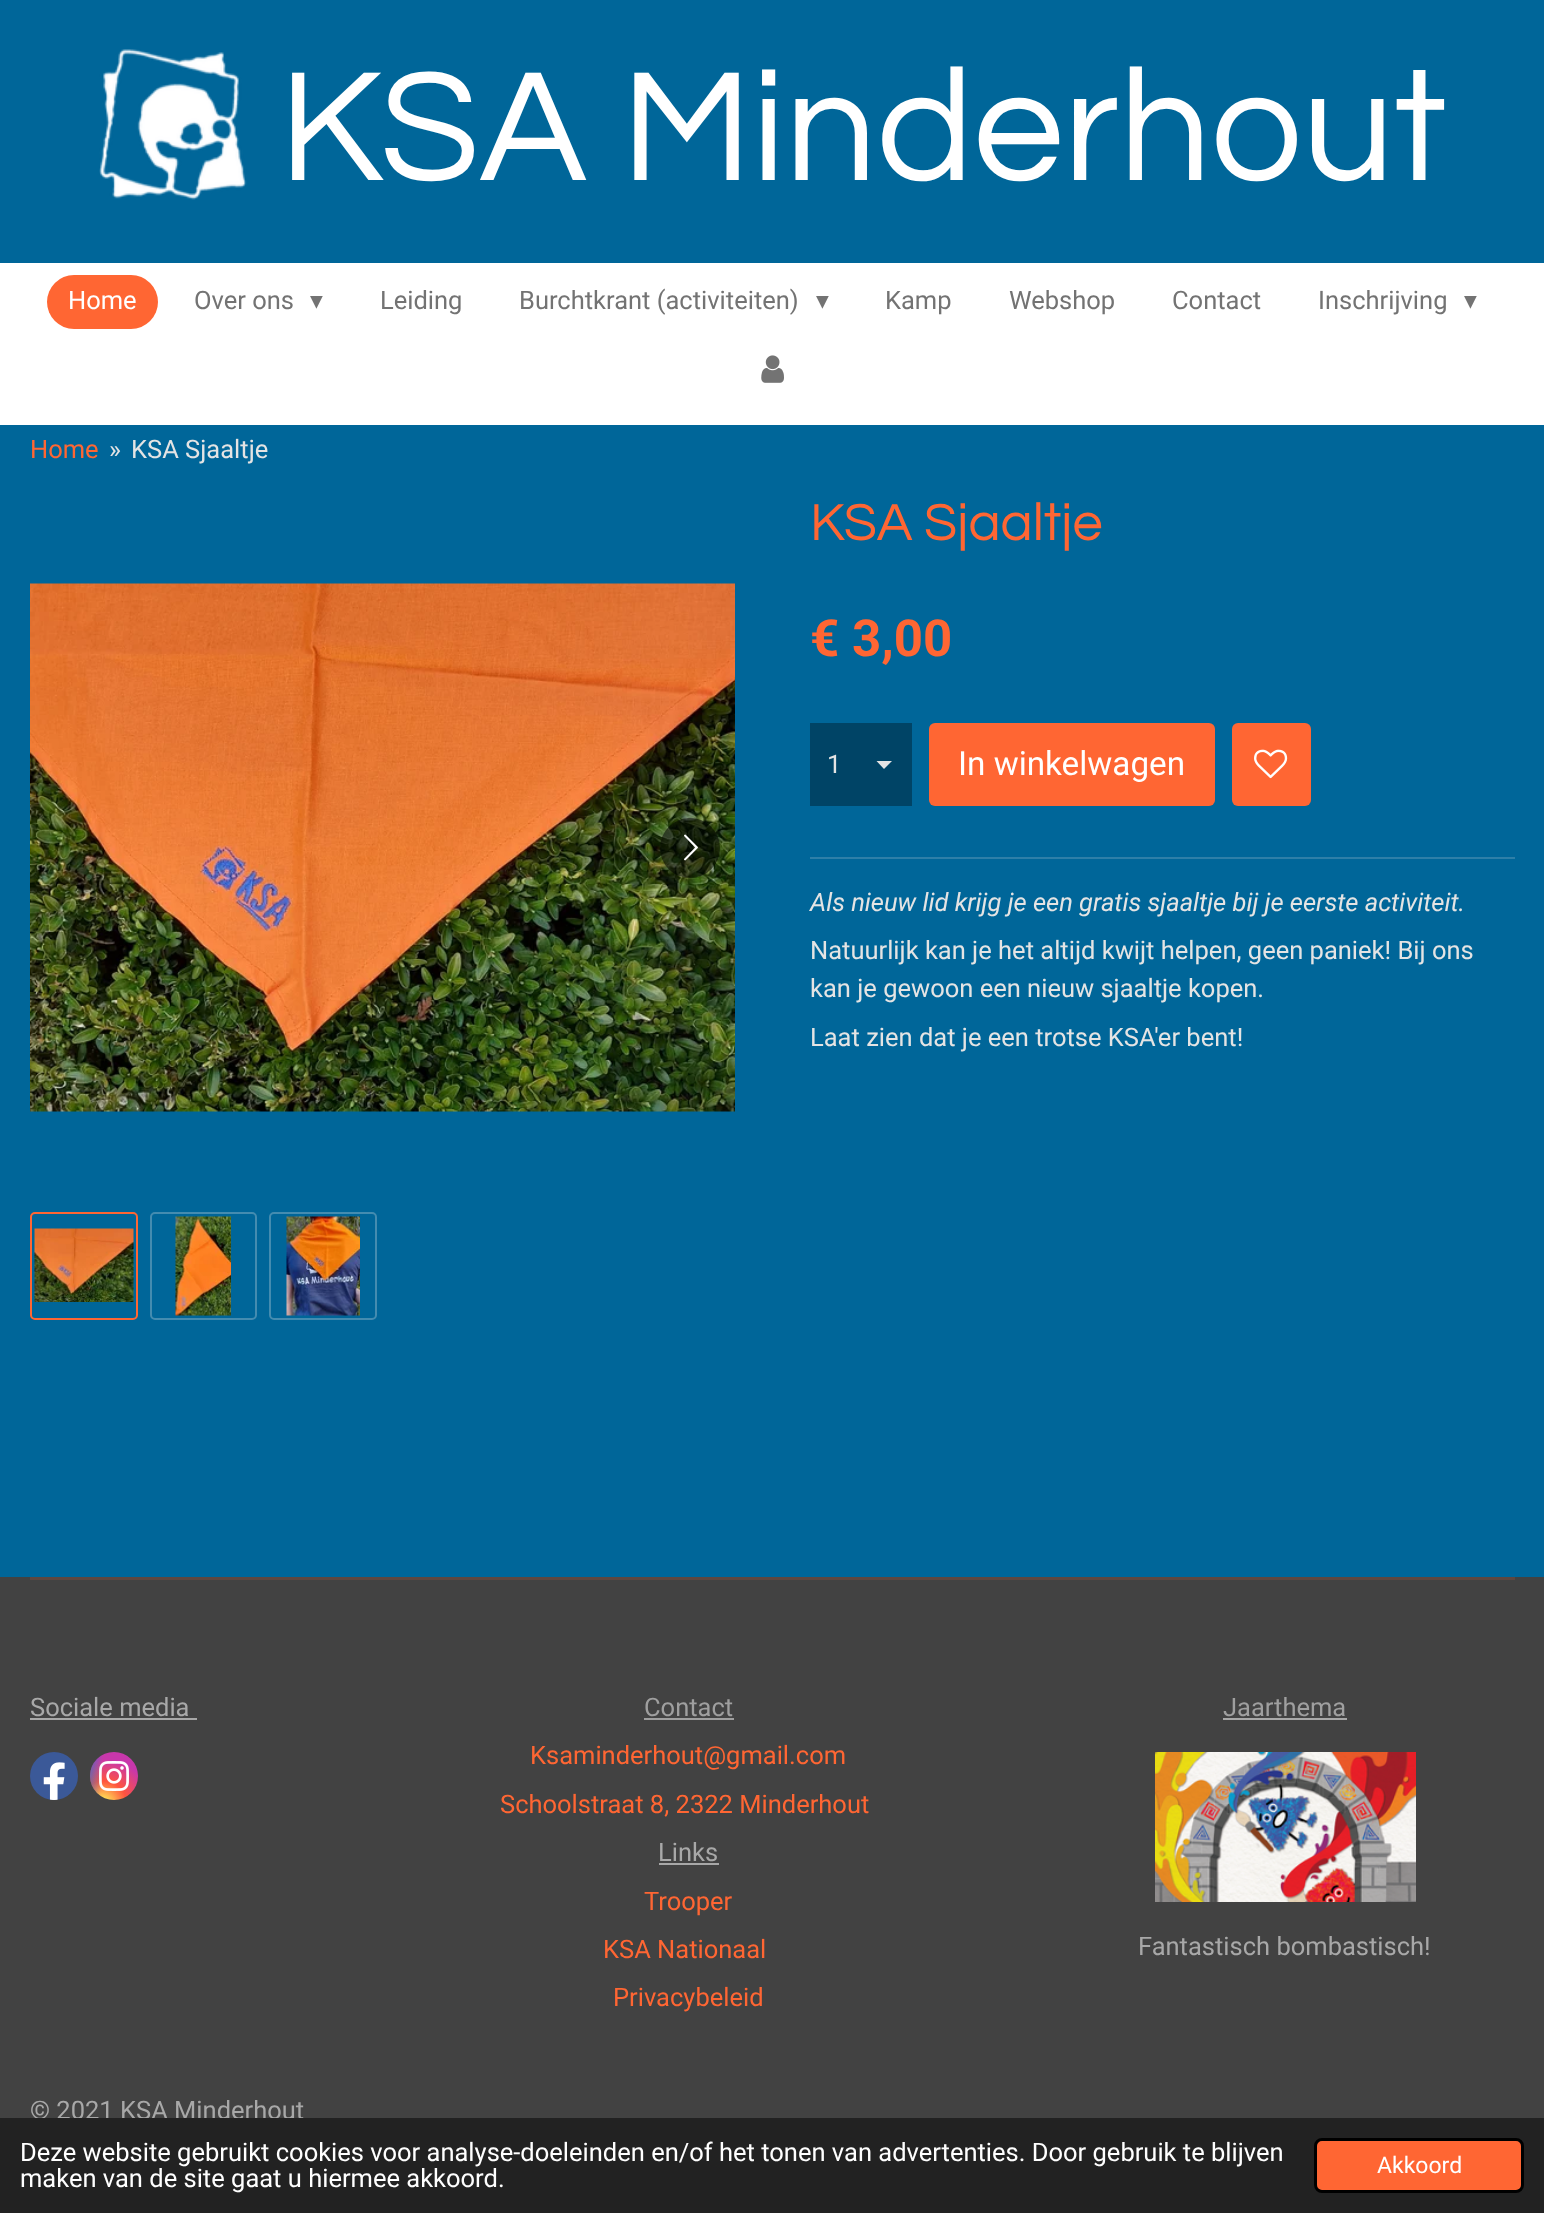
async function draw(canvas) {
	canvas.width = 1544;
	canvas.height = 2213;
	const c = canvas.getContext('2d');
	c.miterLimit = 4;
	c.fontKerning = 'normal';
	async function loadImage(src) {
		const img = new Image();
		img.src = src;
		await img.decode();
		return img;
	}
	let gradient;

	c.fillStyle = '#069';
	c.fillRect(0, 0, 1544, 2213);
	c.drawImage(await loadImage('img1.png'), 99, 49, 148, 151);
	c.font = '162px Questrial';
	c.fillStyle = '#fff';
	c.fillText('KSA Minderhout', 279, 180);
	c.fillRect(0, 263, 1544, 162);
	c.fillStyle = '#f63';
	c.beginPath();
	c.roundRect(47, 275, 111, 54, 27);
	c.fill();
	c.font = '25.5px Roboto';
	c.fillStyle = '#fff';
	c.fillText('Home', 68, 309);
	c.fillStyle = '#737373';
	c.fillText('Over ons', 194, 309);
	c.font = '25.5px DejaVu Sans';
	c.fillText('▾', 310, 309);
	c.font = '25.5px Roboto';
	c.fillText('Leiding', 380, 309);
	c.fillText('Burchtkrant (activiteiten)', 519, 309);
	c.font = '25.5px DejaVu Sans';
	c.fillText('▾', 816, 309);
	c.font = '25.5px Roboto';
	for (const [text, x, y] of [
		['Kamp', 885, 309],
		['Webshop', 1009, 309],
		['Contact', 1172, 309],
		['Inschrijving', 1318, 309],
	]) {
		c.fillText(text, x, y);
	}
	c.font = '25.5px DejaVu Sans';
	c.fillText('▾', 1464, 309);
	c.drawImage(await loadImage('img2.png'), 761, 355, 23, 28);
	c.font = '25.5px Roboto';
	c.fillStyle = '#f63';
	c.fillText('Home', 30, 458);
	c.fillStyle = '#e4e4e4';
	c.fillText('»', 109, 458);
	c.fillText('KSA Sjaaltje', 131, 458);
	c.font = '54px Questrial';
	c.fillStyle = '#f63';
	c.fillText('KSA Sjaaltje', 810, 540);
	c.drawImage(await loadImage('img3.png'), 30, 583, 705, 529);
	c.fillStyle = '#00000080';
	c.beginPath();
	c.arc(690, 848, 30, 0, 2 * Math.PI);
	c.fill();
	c.drawImage(await loadImage('img4.png'), 684, 834, 14, 27);
	c.beginPath();
	c.roundRect(31, 1213, 106, 106, 4);
	c.strokeStyle = '#f63';
	c.lineWidth = 2;
	c.stroke();
	c.drawImage(await loadImage('img5.png'), 34, 1228, 100, 74);
	c.beginPath();
	c.roundRect(151, 1213, 105, 106, 4);
	c.strokeStyle = '#448cb0';
	c.stroke();
	c.drawImage(await loadImage('img6.png'), 175, 1216, 56, 100);
	c.beginPath();
	c.roundRect(270, 1213, 106, 106, 4);
	c.stroke();
	c.drawImage(await loadImage('img7.png'), 286, 1216, 74, 100);
	c.font = 'bold 51px Roboto';
	c.fillStyle = '#f63';
	c.fillText('€ 3,00', 810, 656);
	c.fillStyle = '#046';
	c.fillRect(810, 723, 102, 83);
	c.fillStyle = '#e4e4e4';
	c.beginPath();
	c.moveTo(884, 769);
	c.lineTo(876.5, 761);
	c.lineTo(892, 761);
	c.closePath();
	c.fill();
	c.font = '25.5px Roboto';
	c.fillText('1', 827, 773);
	c.fillStyle = '#f63';
	c.beginPath();
	c.roundRect(929, 723, 286, 83, 6);
	c.fill();
	c.font = '33.25px Roboto';
	c.fillStyle = '#fff';
	c.fillText('In winkelwagen', 958, 775);
	c.fillStyle = '#f63';
	c.beginPath();
	c.roundRect(1232, 723, 79, 83, 6);
	c.fill();
	c.drawImage(await loadImage('img8.png'), 1254, 749, 34, 30);
	c.fillStyle = '#2e7fa8';
	c.fillRect(810, 857, 705, 2);
	c.font = 'italic 25.5px Roboto';
	c.fillStyle = '#e4e4e4';
	c.fillText('Als nieuw lid krijg je een gratis sjaaltje bij je eerste activiteit.', 810, 911);
	c.font = '25.5px Roboto';
	for (const [text, x, y] of [
		['Natuurlijk kan je het altijd kwijt helpen, geen paniek! Bij ons', 810, 959],
		['kan je gewoon een nieuw sjaaltje kopen.', 810, 997],
		['Laat zien dat je een trotse KSA\'er bent!', 810, 1046],
	]) {
		c.fillText(text, x, y);
	}
	c.fillStyle = '#424242';
	c.fillRect(0, 1577, 1544, 541);
	c.fillStyle = '#5e4740';
	c.fillRect(30, 1577, 1485, 3);
	c.fillStyle = '#a8a8a8';
	c.fillText('Sociale media', 30, 1716);
	c.fillRect(30, 1718, 167, 2);
	c.fillStyle = '#3b5998';
	c.beginPath();
	c.arc(54, 1776, 24, 0, 2 * Math.PI);
	c.fill();
	c.drawImage(await loadImage('img9.png'), 43, 1762, 22, 38);
	gradient = c.createRadialGradient(103, 1925.93, 0, 103, 1925.93, 47);
	gradient.addColorStop(0, '#fd5');
	gradient.addColorStop(0.1, '#fd5');
	gradient.addColorStop(0.5, '#ff543e');
	gradient.addColorStop(1, '#c837ab');
	c.fillStyle = gradient;
	c.beginPath();
	c.arc(114, 1776, 24, 0, 2 * Math.PI);
	c.save();
	c.clip();
	c.scale(1, 44 / 47);
	c.fillRect(0, 0, 1544, 2364);
	c.restore();
	gradient = c.createRadialGradient(82, 428.55, 0, 82, 428.55, 21);
	gradient.addColorStop(0, '#3771c8');
	gradient.addColorStop(0.13, '#3771c8');
	gradient.addColorStop(1, '#3771c800');
	c.fillStyle = gradient;
	c.beginPath();
	c.arc(114, 1776, 24, 0, 2 * Math.PI);
	c.save();
	c.clip();
	c.scale(1, 86 / 21);
	c.fillRect(0, 0, 1544, 541);
	c.restore();
	c.drawImage(await loadImage('img10.png'), 99, 1761, 30, 30);
	c.fillStyle = '#9f9f9f';
	c.fillText('Contact', 644, 1716);
	c.fillRect(644, 1718, 90, 2);
	c.fillStyle = '#f63';
	c.fillText('Ksaminderhout@gmail.com', 530, 1764);
	c.fillText('Schoolstraat 8, 2322 Minderhout', 500, 1813);
	c.fillStyle = '#a8a8a8';
	c.fillText('Links', 658, 1861);
	c.fillRect(659, 1863, 60, 2);
	c.fillStyle = '#f63';
	for (const [text, x, y] of [
		['Trooper', 644, 1910],
		['KSA Nationaal', 603, 1958],
		['Privacybeleid', 613, 2006],
	]) {
		c.fillText(text, x, y);
	}
	c.fillStyle = '#9f9f9f';
	c.fillText('Jaarthema', 1223, 1716);
	c.fillStyle = '#a8a8a8';
	c.fillRect(1223, 1718, 124, 2);
	c.drawImage(await loadImage('img11.png'), 1155, 1752, 261, 150);
	c.fillText('Fantastisch bombastisch!', 1138, 1955);
	c.fillText('© 2021 KSA Minderhout', 30, 2119);
	c.fillStyle = '#222';
	c.fillRect(0, 2118, 1544, 95);
	c.fillStyle = '#fff';
	c.fillText('Deze website gebruikt cookies voor analyse-doeleinden en/of het tonen van advertenties. Door gebruik te blijven', 20, 2161);
	c.fillText('maken van de site gaat u hiermee akkoord.', 20, 2187);
	c.fillStyle = '#f63';
	c.beginPath();
	c.roundRect(1315.5, 2139.5, 207, 52, 6.5);
	c.fill();
	c.strokeStyle = '#000';
	c.lineWidth = 3;
	c.stroke();
	c.font = '23px Roboto';
	c.fillStyle = '#fff';
	c.fillText('Akkoord', 1377, 2173);
}

draw(document.querySelector('canvas'));
